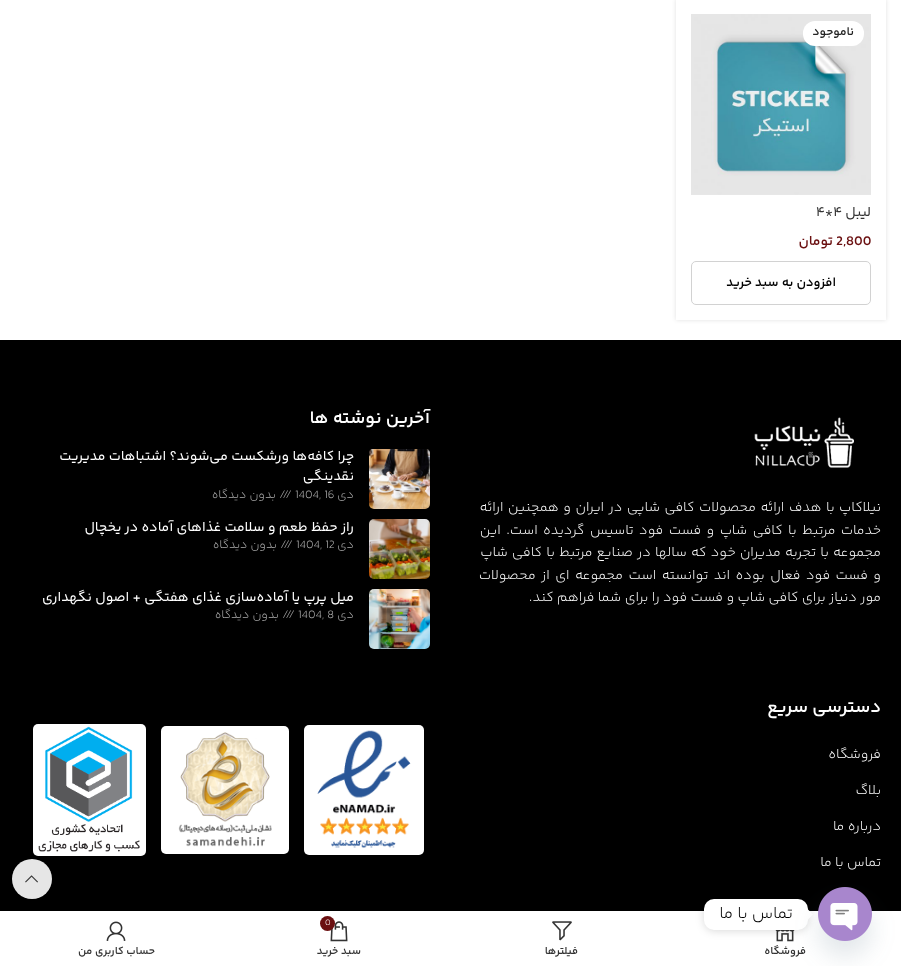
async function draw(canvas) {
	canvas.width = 901;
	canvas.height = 966;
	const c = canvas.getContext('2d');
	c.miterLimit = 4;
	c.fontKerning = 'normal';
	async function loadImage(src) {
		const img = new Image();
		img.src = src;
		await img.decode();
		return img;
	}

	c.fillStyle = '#fff';
	c.fillRect(0, 0, 901, 966);
	c.save();
	c.beginPath();
	c.moveTo(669, 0);
	c.lineTo(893, 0);
	c.lineTo(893, 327);
	c.lineTo(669, 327);
	c.closePath();
	c.moveTo(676, -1);
	c.lineTo(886, -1);
	c.lineTo(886, 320);
	c.lineTo(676, 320);
	c.closePath();
	c.clip('evenodd');
	c.fillStyle = '#0000001f';
	c.filter = 'blur(2px)';
	c.beginPath();
	c.rect(676, -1, 210, 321);
	c.fill();
	c.filter = 'none';
	c.restore();
	c.drawImage(await loadImage('img1.png'), 691, 14, 180, 181);
	c.beginPath();
	c.roundRect(803, 21, 61, 25, 12);
	c.fill();
	c.direction = 'rtl';
	c.font = '600 12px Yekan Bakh';
	c.fillStyle = '#242424';
	c.fillText('ناموجود', 854, 35);
	c.font = '14px Yekan Bakh';
	c.fillStyle = '#333';
	c.fillText('لیبل', 871, 216);
	c.direction = 'ltr';
	c.fillText('۴*۴', 816, 216);
	c.font = '600 14px Yekan Bakh';
	c.fillStyle = '#6b1011';
	c.fillText('2,800', 836, 245);
	c.direction = 'rtl';
	c.fillText('تومان', 833, 245);
	c.beginPath();
	c.roundRect(691.5, 261.5, 179, 43, 4.5);
	c.strokeStyle = '#d2d2d2';
	c.stroke();
	c.font = '600 13px Yekan Bakh';
	c.fillStyle = '#000';
	c.fillText('افزودن به سبد خرید', 836, 286);
	c.fillRect(0, 340, 901, 571);
	c.drawImage(await loadImage('img2.png'), 754, 417, 100, 51);
	c.wordSpacing = '1.1px';
	c.font = '300 14px Yekan Bakh';
	c.fillStyle = '#fff';
	c.fillText('نیلاکاپ با هدف ارائه محصولات کافی شاپی در ایران و همچنین ارائه', 881, 511);
	c.wordSpacing = '2px';
	c.fillText('خدمات مرتبط با کافی شاپ و فست فود تاسیس گردیده است. این', 881, 534);
	c.wordSpacing = '0.8px';
	c.fillText('مجموعه با تجربه مدیران خود که سالها در صنایع مرتبط با کافی شاپ', 881, 556);
	c.wordSpacing = '2px';
	c.fillText('و فست فود فعال بوده اند توانسته است مجموعه ای از محصولات', 881, 579);
	c.wordSpacing = '0px';
	c.fillText('مور دنیاز برای کافی شاپ و فست فود را برای شما فراهم کند.', 881, 601);
	c.font = '600 18px Yekan Bakh';
	c.fillText('آخرین نوشته ها', 430, 423);
	c.drawImage(await loadImage('img3.png'), 369, 449, 61, 60);
	c.font = '14px Yekan Bakh';
	c.fillText('چرا کافه‌ها ورشکست می‌شوند؟ اشتباهات مدیریت', 354, 460);
	c.fillText('نقدینگی', 354, 480);
	c.font = '300 12px Yekan Bakh';
	c.fillStyle = '#adadad';
	c.fillText('دی', 354, 498);
	c.direction = 'ltr';
	c.fillText('1404, 16', 295, 498);
	c.fillText('///', 279, 498);
	c.direction = 'rtl';
	c.fillText('بدون دیدگاه', 276, 498);
	c.drawImage(await loadImage('img4.png'), 369, 519, 61, 60);
	c.font = '14px Yekan Bakh';
	c.fillStyle = '#fff';
	c.fillText('راز حفظ طعم و سلامت غذاهای آماده در یخچال', 354, 531);
	c.font = '300 12px Yekan Bakh';
	c.fillStyle = '#adadad';
	c.fillText('دی', 354, 548);
	c.direction = 'ltr';
	c.fillText('1404, 12', 296, 548);
	c.fillText('///', 280, 548);
	c.direction = 'rtl';
	c.fillText('بدون دیدگاه', 277, 548);
	c.drawImage(await loadImage('img5.png'), 369, 589, 61, 60);
	c.font = '14px Yekan Bakh';
	c.fillStyle = '#fff';
	c.fillText('میل پرپ یا آماده‌سازی غذای هفتگی + اصول نگهداری', 354, 601);
	c.font = '300 12px Yekan Bakh';
	c.fillStyle = '#adadad';
	c.fillText('دی', 354, 618);
	c.direction = 'ltr';
	c.fillText('1404, 8', 298, 618);
	c.fillText('///', 282, 618);
	c.direction = 'rtl';
	c.fillText('بدون دیدگاه', 279, 618);
	c.font = '600 18px Yekan Bakh';
	c.fillStyle = '#fff';
	c.fillText('دسترسی سریع', 881, 712);
	c.font = '300 14px Yekan Bakh';
	for (const [text, x, y] of [
		['فروشگاه', 881, 758],
		['بلاگ', 881, 794],
		['درباره ما', 881, 830],
		['تماس با ما', 881, 866],
	]) {
		c.fillText(text, x, y);
	}
	c.beginPath();
	c.roundRect(304, 725, 120, 130, 5);
	c.fill();
	c.drawImage(await loadImage('img6.png'), 317, 730, 94, 118);
	c.beginPath();
	c.roundRect(161, 726, 128, 128, 5);
	c.fill();
	c.drawImage(await loadImage('img7.png'), 178, 732, 94, 115);
	c.beginPath();
	c.roundRect(33, 724, 113, 132, 5);
	c.fill();
	c.drawImage(await loadImage('img8.png'), 38, 726, 102, 126);
	c.fillStyle = '#e6e6e6';
	c.beginPath();
	c.arc(32, 879, 20, 0, 2 * Math.PI);
	c.fill();
	c.drawImage(await loadImage('img9.png'), 25, 875, 13, 8);
	c.drawImage(await loadImage('img11.png'), 775, 930, 20, 12);
	c.fillStyle = '#00000026';
	c.filter = 'blur(4px)';
	c.beginPath();
	c.roundRect(704, 900, 104, 31, 10);
	c.fill();
	c.filter = 'none';
	c.fillStyle = '#fff';
	c.beginPath();
	c.roundRect(704, 899, 104, 31, 10);
	c.fill();
	c.beginPath();
	c.moveTo(808, 919.5);
	c.lineTo(808, 909.5);
	c.lineTo(813, 914.5);
	c.closePath();
	c.fill();
	c.fillStyle = '#49687e29';
	c.filter = 'blur(12px)';
	c.beginPath();
	c.roundRect(818, 903, 54, 54, 27);
	c.fill();
	c.filter = 'none';
	c.drawImage(await loadImage('img10.png'), 818, 887, 54, 54);
	c.font = '300 17px Yekan Bakh';
	c.fillStyle = '#000';
	c.fillText('تماس با ما', 793, 918);
	c.font = '600 11px Yekan Bakh';
	c.fillStyle = '#333';
	c.fillText('فروشگاه', 806, 954);
	c.drawImage(await loadImage('img12.png'), 552, 921, 20, 20);
	c.fillText('فیلترها', 578, 954);
	c.drawImage(await loadImage('img13.png'), 330, 921, 18, 21);
	c.fillStyle = '#6b1011';
	c.beginPath();
	c.arc(327.5, 923.5, 7.5, 0, 2 * Math.PI);
	c.fill();
	c.direction = 'ltr';
	c.font = '300 9px Yekan Bakh';
	c.fillStyle = '#fff';
	c.fillText('0', 325, 925);
	c.direction = 'rtl';
	c.font = '600 11px Yekan Bakh';
	c.fillStyle = '#333';
	c.fillText('سبد خرید', 361, 954);
	c.drawImage(await loadImage('img14.png'), 106, 921, 20, 20);
	c.fillText('حساب کاربری من', 155, 954);
}

draw(document.querySelector('canvas'));
